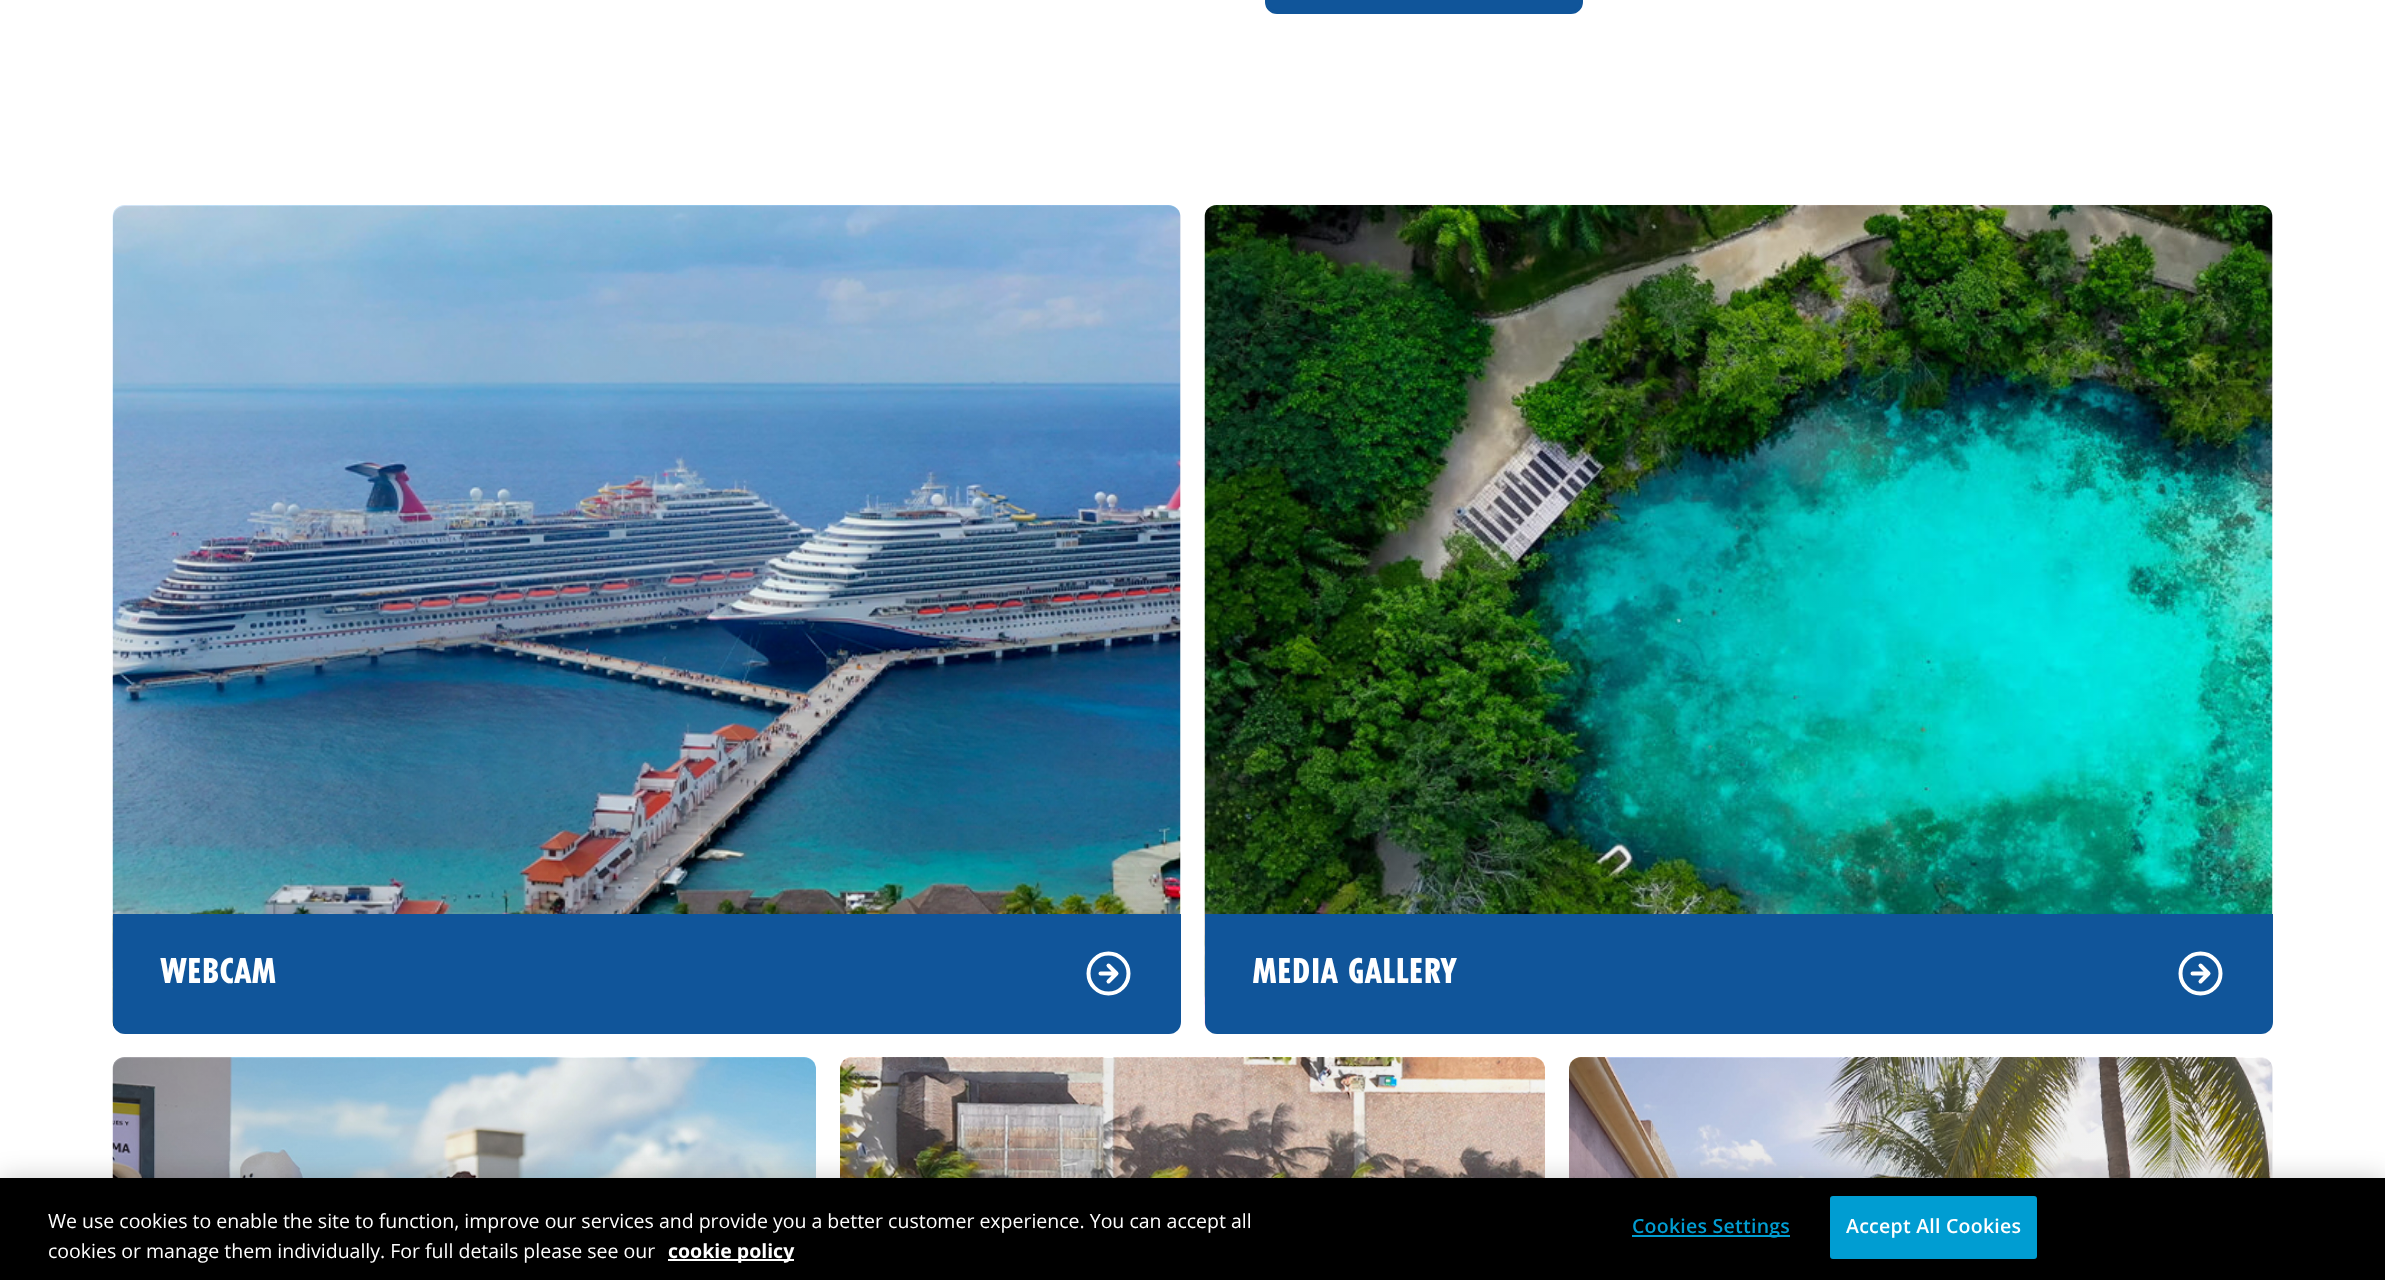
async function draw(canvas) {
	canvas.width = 2385;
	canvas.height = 1280;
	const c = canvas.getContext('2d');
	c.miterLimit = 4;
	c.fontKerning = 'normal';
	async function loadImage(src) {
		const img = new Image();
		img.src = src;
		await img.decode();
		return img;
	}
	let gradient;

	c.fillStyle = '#fff';
	c.fillRect(0, 0, 2385, 1280);
	c.fillStyle = '#10559a';
	c.beginPath();
	c.roundRect(1266.5, -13.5, 315, 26, 10.5);
	c.fill();
	c.strokeStyle = '#10559a';
	c.lineWidth = 3;
	c.stroke();
	c.drawImage(await loadImage('img1.png'), 112, 205, 1069, 828);
	gradient = c.createLinearGradient(154, 161, 1139, 1078);
	gradient.addColorStop(0, '#0000001a');
	gradient.addColorStop(1, '#00000000');
	c.fillStyle = gradient;
	c.beginPath();
	c.roundRect(113, 206, 1068, 828, 12);
	c.fill();
	c.fillStyle = '#10559a';
	c.beginPath();
	c.roundRect(113, 914, 1068, 120, [0, 0, 12, 12]);
	c.fill();
	c.letterSpacing = '1.5px';
	c.font = '900 33.75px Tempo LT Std';
	c.fillStyle = '#fff';
	c.fillText('WEBCAM', 161, 983);
	c.beginPath();
	c.arc(1108.5, 973.5, 20, 0, 2 * Math.PI);
	c.strokeStyle = '#fff';
	c.lineWidth = 4;
	c.stroke();
	c.beginPath();
	c.moveTo(1100.5, 973.5);
	c.lineTo(1116.5, 973.5);
	c.moveTo(1108.5, 981.5);
	c.lineTo(1116.5, 973.5);
	c.lineTo(1108.5, 965.5);
	c.lineCap = 'round';
	c.lineJoin = 'round';
	c.stroke();
	c.drawImage(await loadImage('img2.png'), 1204, 205, 1069, 828);
	gradient = c.createLinearGradient(1246, 161, 2231, 1078);
	gradient.addColorStop(0, '#0000001a');
	gradient.addColorStop(1, '#00000000');
	c.fillStyle = gradient;
	c.beginPath();
	c.roundRect(1205, 206, 1068, 828, 12);
	c.fill();
	c.fillStyle = '#10559a';
	c.beginPath();
	c.roundRect(1205, 914, 1068, 120, [0, 0, 12, 12]);
	c.fill();
	c.fillStyle = '#fff';
	c.fillText('MEDIA GALLERY', 1253, 983);
	c.beginPath();
	c.arc(2200.5, 973.5, 20, 0, 2 * Math.PI);
	c.stroke();
	c.beginPath();
	c.moveTo(2192.5, 973.5);
	c.lineTo(2208.5, 973.5);
	c.moveTo(2200.5, 981.5);
	c.lineTo(2208.5, 973.5);
	c.lineTo(2200.5, 965.5);
	c.stroke();
	c.drawImage(await loadImage('img3.png'), 112, 1057, 704, 121);
	gradient = c.createLinearGradient(124, 1045, 804, 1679);
	gradient.addColorStop(0, '#0000001a');
	gradient.addColorStop(1, '#00000000');
	c.fillStyle = gradient;
	c.beginPath();
	c.roundRect(113, 1058, 703, 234, 12);
	c.fill();
	c.drawImage(await loadImage('img4.png'), 840, 1057, 705, 121);
	gradient = c.createLinearGradient(852, 1045, 1533, 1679);
	gradient.addColorStop(0, '#0000001a');
	gradient.addColorStop(1, '#00000000');
	c.fillStyle = gradient;
	c.beginPath();
	c.roundRect(840, 1058, 705, 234, 12);
	c.fill();
	c.drawImage(await loadImage('img5.png'), 1569, 1057, 704, 121);
	gradient = c.createLinearGradient(1581, 1045, 2261, 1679);
	gradient.addColorStop(0, '#0000001a');
	gradient.addColorStop(1, '#00000000');
	c.fillStyle = gradient;
	c.beginPath();
	c.roundRect(1569, 1058, 704, 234, 12);
	c.fill();
	c.fillStyle = '#00000033';
	c.filter = 'blur(13.5px)';
	c.beginPath();
	c.rect(0, 1178, 2385, 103);
	c.fill();
	c.filter = 'none';
	c.fillStyle = '#000';
	c.fillRect(0, 1178, 2385, 102);
	c.letterSpacing = '0px';
	c.font = '19.5px Open Sans';
	c.fillStyle = '#fff';
	c.fillText('We use cookies to enable the site to function, improve our services and provide you a better customer experience. You can accept all', 48, 1228);
	c.fillText('cookies or manage them individually. For full details please see our', 48, 1258);
	c.fillRect(668, 1259, 126, 2);
	c.font = 'bold 19.5px Open Sans';
	c.fillText('cookie policy', 668, 1258);
	c.fillStyle = '#009dd2';
	c.fillRect(1632, 1235, 158, 2);
	c.letterSpacing = '0.25px';
	c.font = '600 19.5px Open Sans';
	c.fillText('Cookies Settings', 1632, 1233);
	c.beginPath();
	c.roundRect(1831, 1197, 205, 61, 2);
	c.fill();
	c.strokeStyle = '#009dd2';
	c.lineWidth = 2;
	c.lineJoin = 'miter';
	c.stroke();
	c.fillStyle = '#fff';
	c.fillText('Accept All Cookies', 1846, 1233);
}

draw(document.querySelector('canvas'));
